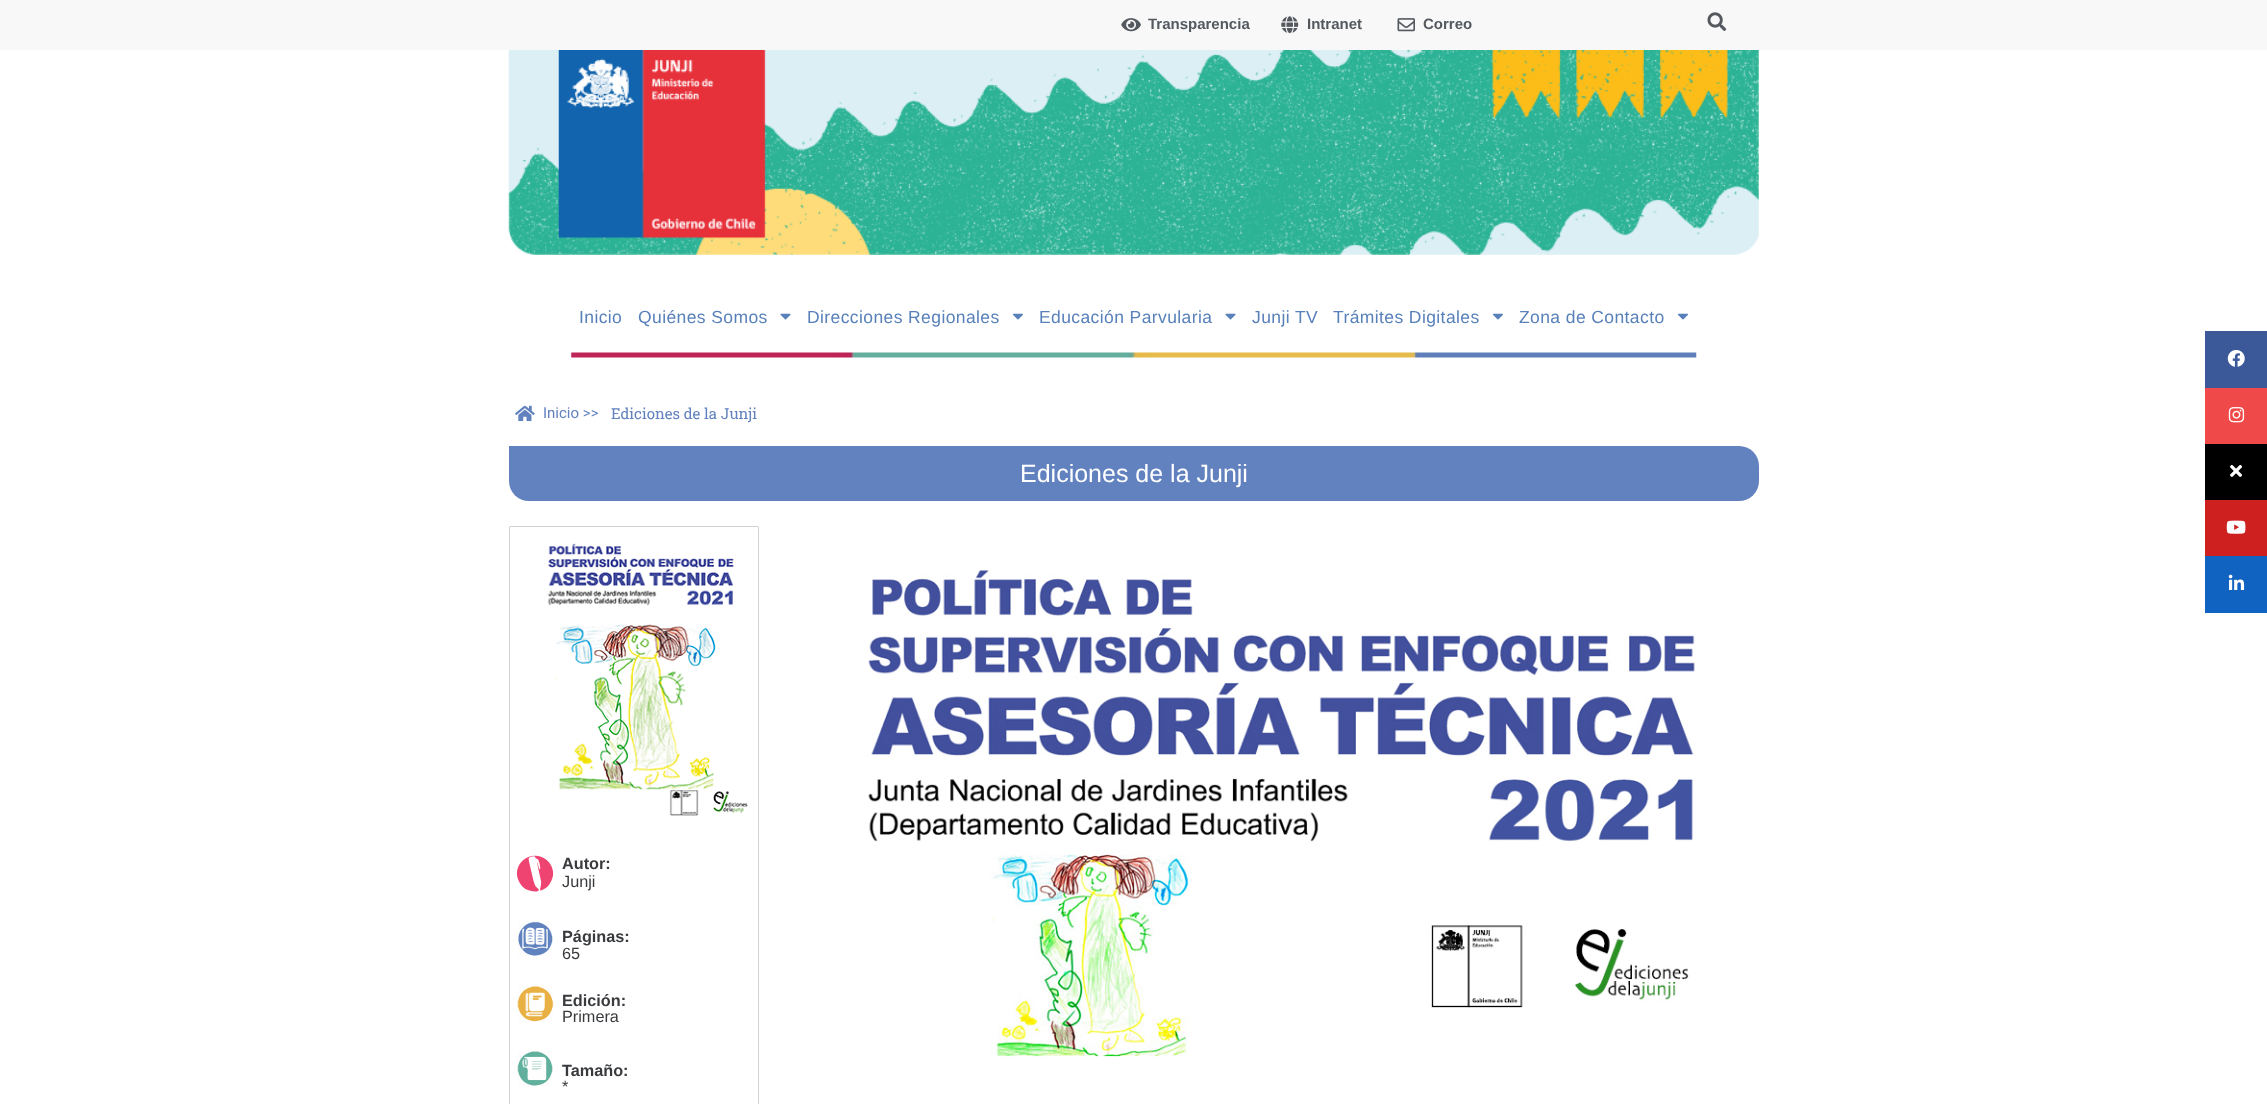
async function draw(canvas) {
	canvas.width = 2267;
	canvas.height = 1104;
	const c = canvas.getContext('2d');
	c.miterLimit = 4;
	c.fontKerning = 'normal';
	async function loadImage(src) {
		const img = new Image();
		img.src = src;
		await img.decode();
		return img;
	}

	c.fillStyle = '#fff';
	c.fillRect(0, 0, 2267, 1104);
	c.fillStyle = '#f8f8f8';
	c.fillRect(0, 0, 2267, 50);
	c.drawImage(await loadImage('img1.png'), 1121, 18, 20, 14);
	c.font = 'bold 15px Liberation Sans';
	c.fillStyle = '#54595f';
	c.fillText('Transparencia', 1148, 29);
	c.drawImage(await loadImage('img2.png'), 1281, 16, 18, 18);
	c.fillText('Intranet', 1307, 29);
	c.drawImage(await loadImage('img3.png'), 1397, 18, 18, 14);
	c.fillText('Correo', 1423, 29);
	c.drawImage(await loadImage('img4.png'), 1707, 12, 20, 19);
	c.drawImage(await loadImage('img5.png'), 508, 50, 1251, 205);
	c.letterSpacing = '0.4px';
	c.font = '17.5px Liberation Sans';
	c.fillStyle = '#5880b9';
	c.fillText('Inicio', 579, 323);
	c.fillText('Quiénes Somos', 638, 323);
	c.drawImage(await loadImage('img6.png'), 780, 313, 11, 7);
	c.fillText('Direcciones Regionales', 807, 323);
	c.drawImage(await loadImage('img7.png'), 1012, 313, 11, 7);
	c.fillText('Educación Parvularia', 1039, 323);
	c.drawImage(await loadImage('img6.png'), 1225, 313, 11, 7);
	c.fillText('Junji TV', 1252, 323);
	c.fillText('Trámites Digitales', 1333, 323);
	c.drawImage(await loadImage('img7.png'), 1492, 313, 11, 7);
	c.fillText('Zona de Contacto', 1519, 323);
	c.drawImage(await loadImage('img7.png'), 1677, 313, 11, 7);
	c.drawImage(await loadImage('img8.png'), 571, 352, 1126, 6);
	c.drawImage(await loadImage('img9.png'), 515, 405, 20, 17);
	c.letterSpacing = '0px';
	c.font = '15px Roboto';
	c.fillStyle = '#6181bf';
	c.fillText('Inicio >>', 543, 418);
	c.font = '15px Roboto Slab';
	c.fillText('Ediciones de la Junji', 611, 419);
	c.beginPath();
	c.roundRect(509, 446, 1250, 55, [0, 20, 20, 20]);
	c.fill();
	c.font = '25px Liberation Sans';
	c.fillStyle = '#fff';
	c.fillText('Ediciones de la Junji', 1020, 482);
	c.beginPath();
	c.roundRect(509.5, 526.5, 249, 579, 0.5);
	c.strokeStyle = '#d2d2d2';
	c.stroke();
	c.drawImage(await loadImage('img10.png'), 547, 543, 201, 273);
	c.drawImage(await loadImage('img11.png'), 516, 855, 38, 37);
	c.drawImage(await loadImage('img12.png'), 518, 921, 35, 35);
	c.drawImage(await loadImage('img13.png'), 517, 986, 37, 36);
	c.drawImage(await loadImage('img14.png'), 517, 1051, 36, 35);
	c.font = 'bold 16.25px Liberation Sans';
	c.fillStyle = '#383a3d';
	c.fillText('Autor:', 562, 869);
	c.font = '16.25px Liberation Sans';
	c.fillText('Junji', 562, 887);
	c.font = 'bold 16.25px Liberation Sans';
	c.fillText('Páginas:', 562, 942);
	c.font = '16.25px Liberation Sans';
	c.fillText('65', 562, 959);
	c.font = 'bold 16.25px Liberation Sans';
	c.fillText('Edición:', 562, 1006);
	c.font = '16.25px Liberation Sans';
	c.fillText('Primera', 562, 1022);
	c.font = 'bold 16.25px Liberation Sans';
	c.fillText('Tamaño:', 562, 1076);
	c.font = '16.25px Liberation Sans';
	c.fillText('*', 562, 1092);
	c.drawImage(await loadImage('img15.png'), 868, 570, 827, 487);
	c.fillStyle = '#3b5998';
	c.fillRect(2205, 331, 62, 57);
	c.drawImage(await loadImage('img16.png'), 2227, 350, 18, 17);
	c.fillStyle = '#f04949';
	c.fillRect(2205, 388, 62, 56);
	c.drawImage(await loadImage('img17.png'), 2228, 407, 17, 16);
	c.fillStyle = '#000';
	c.fillRect(2205, 444, 62, 56);
	c.drawImage(await loadImage('img18.png'), 2230, 464, 13, 13);
	c.fillStyle = '#cd201f';
	c.fillRect(2205, 500, 62, 56);
	c.drawImage(await loadImage('img19.png'), 2226, 520, 20, 14);
	c.fillStyle = '#1063c1';
	c.fillRect(2205, 556, 62, 57);
	c.drawImage(await loadImage('img20.png'), 2228, 574, 17, 16);
}

draw(document.querySelector('canvas'));
